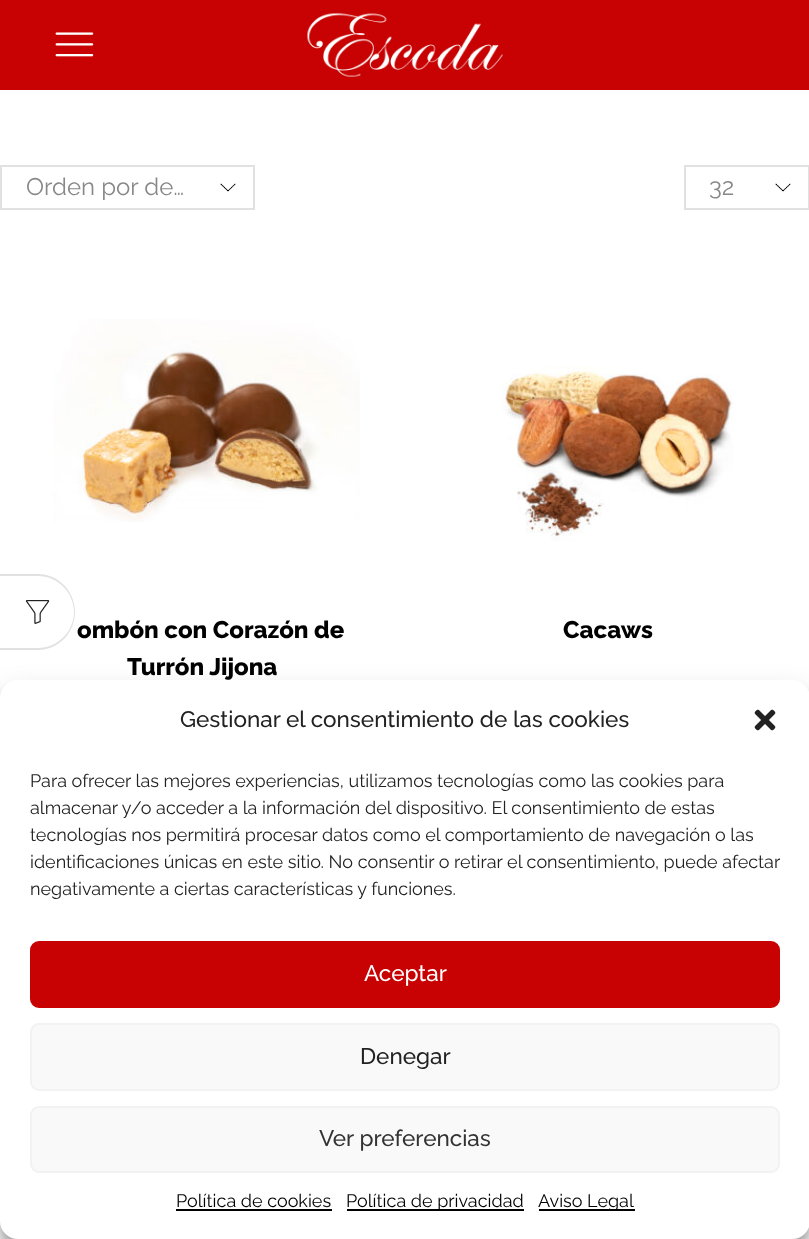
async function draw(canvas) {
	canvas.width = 809;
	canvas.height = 1239;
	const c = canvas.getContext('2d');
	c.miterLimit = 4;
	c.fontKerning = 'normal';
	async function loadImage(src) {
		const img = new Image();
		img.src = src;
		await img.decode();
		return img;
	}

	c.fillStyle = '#fff';
	c.fillRect(0, 0, 809, 1239);
	c.fillStyle = '#c80202';
	c.fillRect(0, 0, 809, 90);
	c.drawImage(await loadImage('img1.png'), 55, 32, 39, 25);
	c.drawImage(await loadImage('img2.png'), 307, 13, 196, 64);
	c.drawImage(await loadImage('img3.png'), 220, 183, 16, 9);
	c.strokeStyle = '#e1e1e1';
	c.lineWidth = 2;
	c.strokeRect(1, 166, 253, 43);
	c.font = '24px Raleway';
	c.fillStyle = '#888';
	c.fillText('Orden por de…', 26, 195);
	c.drawImage(await loadImage('img3.png'), 775, 183, 16, 9);
	c.strokeRect(685, 166, 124, 43);
	c.fillText('32', 709, 195);
	c.drawImage(await loadImage('img4.png'), 53, 319, 307, 203);
	c.font = '800 24px Raleway';
	c.fillStyle = '#000';
	c.fillText('ombón con Corazón de', 77, 638);
	c.fillText('Turrón Jijona', 127, 675);
	c.drawImage(await loadImage('img5.png'), 501, 366, 233, 175);
	c.fillText('Cacaws', 563, 638);
	c.fillStyle = '#e1e1e1';
	c.beginPath();
	c.moveTo(0, 574);
	c.lineTo(38, 574);
	c.bezierCurveTo(58, 574, 75, 591, 75, 612);
	c.bezierCurveTo(75, 633, 58, 650, 38, 650);
	c.lineTo(0, 650);
	c.closePath();
	c.moveTo(0, 576);
	c.lineTo(38, 576);
	c.bezierCurveTo(57, 576, 74, 592, 74, 612);
	c.bezierCurveTo(74, 632, 57, 648, 38, 648);
	c.lineTo(0, 648);
	c.closePath();
	c.fill('evenodd');
	c.drawImage(await loadImage('img6.png'), 25, 600, 25, 24);
	c.fillStyle = '#0000003b';
	c.filter = 'blur(4.5px)';
	c.beginPath();
	c.roundRect(0, 689, 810, 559, 18);
	c.fill();
	c.filter = 'none';
	c.fillStyle = '#00000030';
	c.filter = 'blur(15px)';
	c.beginPath();
	c.roundRect(0, 695, 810, 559, 18);
	c.fill();
	c.filter = 'none';
	c.fillStyle = '#fff';
	c.beginPath();
	c.roundRect(0, 680, 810, 559, 18);
	c.fill();
	c.font = '500 22.5px Raleway';
	c.fillStyle = '#222';
	c.fillText('Gestionar el consentimiento de las cookies', 180, 727);
	c.drawImage(await loadImage('img7.png'), 754, 709, 22, 22);
	c.font = '18px Raleway';
	for (const [text, x, y] of [
		['Para ofrecer las mejores experiencias, utilizamos tecnologías como las cookies para', 30, 787],
		['almacenar y/o acceder a la información del dispositivo. El consentimiento de estas', 30, 814],
		['tecnologías nos permitirá procesar datos como el comportamiento de navegación o las', 30, 841],
		['identificaciones únicas en este sitio. No consentir o retirar el consentimiento, puede afectar', 30, 868],
		['negativamente a ciertas características y funciones.', 30, 895],
	]) {
		c.fillText(text, x, y);
	}
	c.fillStyle = '#c80202';
	c.beginPath();
	c.roundRect(31, 942, 748, 65, 8);
	c.fill();
	c.strokeStyle = '#c80202';
	c.stroke();
	c.font = '500 22.5px Raleway';
	c.fillStyle = '#fff';
	c.fillText('Aceptar', 364, 981);
	c.fillStyle = '#f9f9f9';
	c.beginPath();
	c.roundRect(31, 1024, 748, 66, 8);
	c.fill();
	c.strokeStyle = '#f2f2f2';
	c.stroke();
	c.fillStyle = '#222';
	c.fillText('Denegar', 360, 1064);
	c.fillStyle = '#f9f9f9';
	c.beginPath();
	c.roundRect(31, 1107, 748, 65, 8);
	c.fill();
	c.stroke();
	c.fillStyle = '#333';
	c.fillText('Ver preferencias', 319, 1146);
	c.font = '18px Raleway';
	c.fillStyle = '#000';
	c.fillText('Política de cookies', 176, 1207);
	c.fillRect(176, 1209, 156, 2);
	c.fillRect(347, 1209, 177, 2);
	c.fillText('Política de privacidad', 346, 1207);
	c.fillRect(539, 1209, 96, 2);
	c.fillText('Aviso Legal', 538, 1207);
}

draw(document.querySelector('canvas'));
